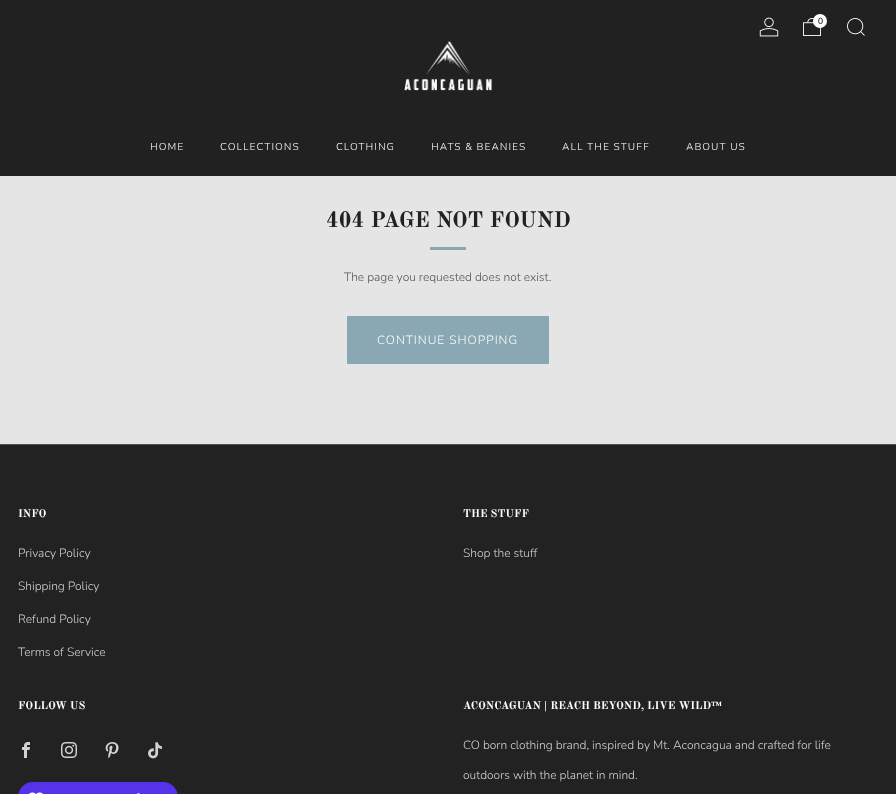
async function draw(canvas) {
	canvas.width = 896;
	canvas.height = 794;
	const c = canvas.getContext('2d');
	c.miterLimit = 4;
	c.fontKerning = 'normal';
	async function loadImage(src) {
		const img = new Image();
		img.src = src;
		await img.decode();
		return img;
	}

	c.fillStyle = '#e5e5e5';
	c.fillRect(0, 0, 896, 794);
	c.fillStyle = '#212121';
	c.fillRect(0, 0, 896, 176);
	c.drawImage(await loadImage('img1.png'), 759, 17, 20, 20);
	c.drawImage(await loadImage('img2.png'), 803, 18, 18, 18);
	c.fillStyle = '#fff';
	c.beginPath();
	c.arc(820, 21, 7, 0, 2 * Math.PI);
	c.fill();
	c.font = '9px Liberation Sans';
	c.fillStyle = '#000';
	c.fillText('0', 818, 24);
	c.drawImage(await loadImage('img3.png'), 847, 18, 18, 18);
	c.letterSpacing = '1px';
	c.font = '300 10px "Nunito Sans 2"';
	c.fillStyle = '#fff';
	for (const [text, x, y] of [
		['HOME', 150, 150],
		['COLLECTIONS', 220, 150],
		['CLOTHING', 336, 150],
		['HATS & BEANIES', 431, 150],
		['ALL THE STUFF', 562, 150],
		['ABOUT US', 686, 150],
	]) {
		c.fillText(text, x, y);
	}
	c.drawImage(await loadImage('img4.png'), 404, 41, 89, 50);
	c.letterSpacing = '0px';
	c.font = 'bold 22px Old Standard TT';
	c.fillStyle = '#212121';
	c.fillText('404 PAGE NOT FOUND', 326, 227);
	c.fillStyle = '#8aa7b4';
	c.fillRect(430, 247, 36, 3);
	c.font = '300 12px Nunito Sans';
	c.fillStyle = '#535353';
	c.fillText('The page you requested does not exist.', 344, 281);
	c.fillStyle = '#8aa7b4';
	c.fillRect(347, 316, 202, 48);
	c.letterSpacing = '1px';
	c.fillStyle = '#fff';
	c.fillText('CONTINUE SHOPPING', 377, 344);
	c.fillStyle = '#222';
	c.fillRect(0, 445, 896, 349);
	c.fillStyle = '#4e4e4e';
	c.fillRect(0, 444, 896, 1);
	c.letterSpacing = '0px';
	c.font = 'bold 11px Old Standard TT';
	c.fillStyle = '#fff';
	c.fillText('INFO', 18, 517);
	c.font = '300 12px Nunito Sans';
	c.fillStyle = '#d3d3d3';
	for (const [text, x, y] of [
		['Privacy Policy', 18, 557],
		['Shipping Policy', 18, 590],
		['Refund Policy', 18, 623],
		['Terms of Service', 18, 656],
	]) {
		c.fillText(text, x, y);
	}
	c.font = 'bold 11px Old Standard TT';
	c.fillStyle = '#fff';
	c.fillText('THE STUFF', 463, 517);
	c.font = '300 12px Nunito Sans';
	c.fillStyle = '#d3d3d3';
	c.fillText('Shop the stuff', 463, 557);
	c.font = 'bold 11px Old Standard TT';
	c.fillStyle = '#fff';
	c.fillText('FOLLOW US', 18, 709);
	c.drawImage(await loadImage('img5.png'), 22, 742, 8, 16);
	c.drawImage(await loadImage('img6.png'), 61, 742, 16, 16);
	c.drawImage(await loadImage('img7.png'), 105, 742, 14, 16);
	c.drawImage(await loadImage('img8.png'), 148, 742, 14, 17);
	c.fillStyle = '#5433eb';
	c.beginPath();
	c.roundRect(18, 782, 160, 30, 18);
	c.fill();
	c.drawImage(await loadImage('img9.png'), 29, 792, 14, 2);
	c.drawImage(await loadImage('img10.png'), 137, 793, 3, 1);
	c.fillStyle = '#fff';
	c.fillText('ACONCAGUAN | REACH BEYOND, LIVE WILD', 463, 709);
	c.font = 'bold 11px Liberation Serif';
	c.fillText('™', 711, 709);
	c.font = '300 12px Nunito Sans';
	c.fillStyle = '#d3d3d3';
	c.fillText('CO born clothing brand, inspired by Mt. Aconcagua and crafted for life', 463, 749);
	c.fillText('outdoors with the planet in mind.', 463, 779);
}

draw(document.querySelector('canvas'));
